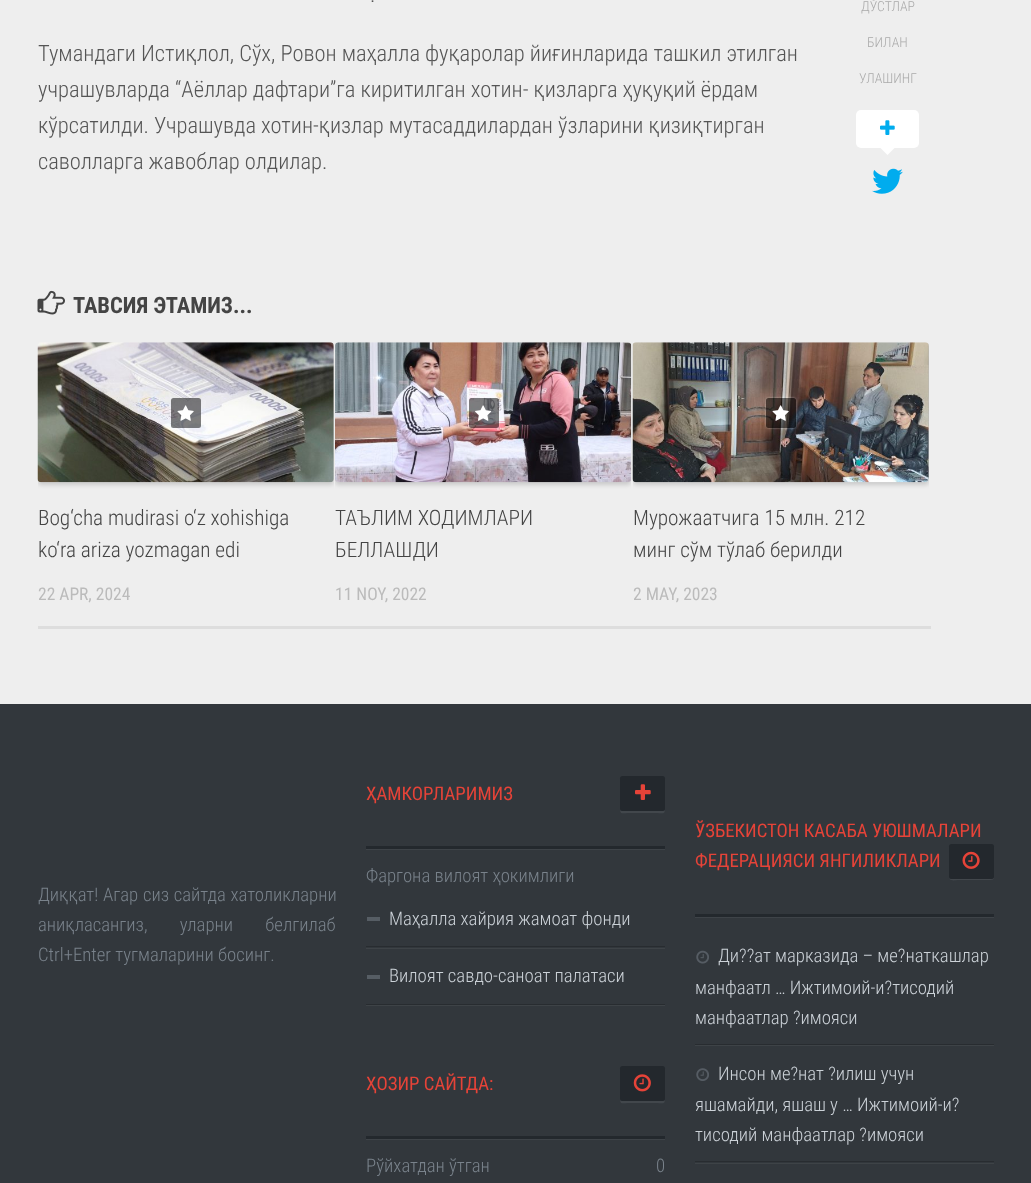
async function draw(canvas) {
	canvas.width = 1031;
	canvas.height = 1183;
	const c = canvas.getContext('2d');
	c.miterLimit = 4;
	c.fontKerning = 'normal';
	async function loadImage(src) {
		const img = new Image();
		img.src = src;
		await img.decode();
		return img;
	}

	c.fillStyle = '#32373c';
	c.fillRect(0, 0, 1031, 1183);
	c.fillStyle = '#eee';
	c.fillRect(0, 0, 1031, 704);
	c.font = '300 22.5px Roboto Condensed';
	c.fillStyle = '#555';
	for (const [text, x, y] of [
		['.', 370, 2],
		['Тумандаги Истиқлол, Сўх, Ровон маҳалла фуқаролар йиғинларида ташкил этилган', 38, 61],
		['учрашувларда “Аёллар дафтари”га киритилган хотин- қизларга ҳуқуқий ёрдам', 38, 97],
		['кўрсатилди. Учрашувда хотин-қизлар мутасаддилардан ўзларини қизиқтирган', 38, 133],
		['саволларга жавоблар олдилар.', 38, 169],
	]) {
		c.fillText(text, x, y);
	}
	c.font = '300 13.75px Roboto Condensed';
	c.fillStyle = '#aaa';
	for (const [text, x, y] of [
		['ДЎСТЛАР', 861, 11],
		['БИЛАН', 867, 47],
		['УЛАШИНГ', 859, 83],
	]) {
		c.fillText(text, x, y);
	}
	c.fillStyle = '#fff';
	c.beginPath();
	c.roundRect(856, 110, 63, 38, 5);
	c.fill();
	c.drawImage(await loadImage('img1.png'), 880, 120, 15, 15);
	c.beginPath();
	c.moveTo(880, 147.5);
	c.lineTo(895, 147.5);
	c.lineTo(887.5, 155);
	c.closePath();
	c.fill();
	c.drawImage(await loadImage('img2.png'), 872, 168, 31, 26);
	c.drawImage(await loadImage('img3.png'), 37, 290, 28, 25);
	c.font = 'bold 22.5px Roboto Condensed';
	c.fillStyle = '#444';
	c.fillText('ТАВСИЯ ЭТАМИЗ...', 73, 313);
	c.fillStyle = '#ddd';
	c.fillRect(38, 626, 893, 3);
	c.save();
	c.beginPath();
	c.rect(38, 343, 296, 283);
	c.clip();
	c.fillStyle = '#00000026';
	c.filter = 'blur(2px)';
	c.beginPath();
	c.roundRect(38, 345, 296, 140, 4);
	c.fill();
	c.filter = 'none';
	c.restore();
	c.drawImage(await loadImage('img4.png'), 37, 342, 297, 141);
	c.fillStyle = '#00000080';
	c.beginPath();
	c.roundRect(171, 398, 30, 30, 2.5);
	c.fill();
	c.drawImage(await loadImage('img5.png'), 177, 405, 17, 16);
	c.font = '300 21.25px Roboto Condensed';
	c.fillStyle = '#444';
	c.fillText('Bog‘cha mudirasi o‘z xohishiga', 38, 525);
	c.fillText('ko‘ra ariza yozmagan edi', 38, 557);
	c.font = '17.5px Roboto Condensed';
	c.fillStyle = '#bbb';
	c.fillText('22 APR, 2024', 38, 600);
	c.save();
	c.beginPath();
	c.rect(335, 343, 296, 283);
	c.clip();
	c.fillStyle = '#00000026';
	c.filter = 'blur(2px)';
	c.beginPath();
	c.roundRect(335, 345, 296, 140, 4);
	c.fill();
	c.filter = 'none';
	c.restore();
	c.drawImage(await loadImage('img6.png'), 335, 342, 297, 141);
	c.save();
	c.beginPath();
	c.moveTo(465, 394);
	c.lineTo(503, 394);
	c.lineTo(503, 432);
	c.lineTo(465, 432);
	c.closePath();
	c.moveTo(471.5, 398);
	c.lineTo(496.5, 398);
	c.bezierCurveTo(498, 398, 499, 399, 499, 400.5);
	c.lineTo(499, 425.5);
	c.bezierCurveTo(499, 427, 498, 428, 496.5, 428);
	c.lineTo(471.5, 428);
	c.bezierCurveTo(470, 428, 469, 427, 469, 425.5);
	c.lineTo(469, 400.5);
	c.bezierCurveTo(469, 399, 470, 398, 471.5, 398);
	c.closePath();
	c.clip('evenodd');
	c.fillStyle = '#ffffff66';
	c.filter = 'blur(1px)';
	c.beginPath();
	c.roundRect(469, 398, 30, 30, 2.5);
	c.fill();
	c.filter = 'none';
	c.restore();
	c.fillStyle = '#00000080';
	c.beginPath();
	c.roundRect(469, 398, 30, 30, 2.5);
	c.fill();
	c.drawImage(await loadImage('img7.png'), 475, 405, 17, 16);
	c.font = '300 21.25px Roboto Condensed';
	c.fillStyle = '#444';
	c.fillText('ТАЪЛИМ ХОДИМЛАРИ', 335, 525);
	c.fillText('БЕЛЛАШДИ', 335, 557);
	c.font = '17.5px Roboto Condensed';
	c.fillStyle = '#bbb';
	c.fillText('11 NOY, 2022', 335, 600);
	c.save();
	c.beginPath();
	c.rect(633, 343, 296, 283);
	c.clip();
	c.fillStyle = '#00000026';
	c.filter = 'blur(2px)';
	c.beginPath();
	c.roundRect(633, 345, 296, 140, 4);
	c.fill();
	c.filter = 'none';
	c.restore();
	c.drawImage(await loadImage('img8.png'), 632, 342, 297, 141);
	c.save();
	c.beginPath();
	c.moveTo(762, 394);
	c.lineTo(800, 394);
	c.lineTo(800, 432);
	c.lineTo(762, 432);
	c.closePath();
	c.moveTo(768.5, 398);
	c.lineTo(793.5, 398);
	c.bezierCurveTo(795, 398, 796, 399, 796, 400.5);
	c.lineTo(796, 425.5);
	c.bezierCurveTo(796, 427, 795, 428, 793.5, 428);
	c.lineTo(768.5, 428);
	c.bezierCurveTo(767, 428, 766, 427, 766, 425.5);
	c.lineTo(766, 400.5);
	c.bezierCurveTo(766, 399, 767, 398, 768.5, 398);
	c.closePath();
	c.clip('evenodd');
	c.fillStyle = '#ffffff66';
	c.filter = 'blur(1px)';
	c.beginPath();
	c.roundRect(766, 398, 30, 30, 2.5);
	c.fill();
	c.filter = 'none';
	c.restore();
	c.fillStyle = '#00000080';
	c.beginPath();
	c.roundRect(766, 398, 30, 30, 2.5);
	c.fill();
	c.drawImage(await loadImage('img9.png'), 772, 405, 17, 16);
	c.font = '300 21.25px Roboto Condensed';
	c.fillStyle = '#444';
	c.fillText('Мурожаатчига 15 млн. 212', 633, 525);
	c.fillText('минг сўм тўлаб берилди', 633, 557);
	c.font = '17.5px Roboto Condensed';
	c.fillStyle = '#bbb';
	c.fillText('2 MAY, 2023', 633, 600);
	c.wordSpacing = '0.5px';
	c.font = '300 18.75px Roboto Condensed';
	c.fillStyle = '#79828b';
	c.fillText('Диққат! Агар сиз сайтда хатоликларни', 38, 901);
	c.wordSpacing = '28px';
	c.fillText('аниқласангиз, уларни белгилаб', 38, 931);
	c.wordSpacing = '0px';
	c.fillText('Ctrl+Enter тугмаларини босинг.', 38, 961);
	c.save();
	c.beginPath();
	c.rect(366, 741, 299, 290);
	c.clip();
	c.fillStyle = '#3e4348';
	c.beginPath();
	c.moveTo(329, 849);
	c.lineTo(329, 850);
	c.lineTo(703, 850);
	c.lineTo(703, 780);
	c.lineTo(702, 780);
	c.lineTo(702, 849);
	c.closePath();
	c.fill();
	c.restore();
	c.fillStyle = '#23282d';
	c.fillRect(366, 846, 299, 3);
	c.font = '18.75px Roboto Condensed';
	c.fillStyle = '#e64338';
	c.fillText('ҲАМКОРЛАРИМИЗ', 366, 800);
	c.fillStyle = '#42474c';
	c.beginPath();
	c.moveTo(620, 809);
	c.bezierCurveTo(620, 815, 623, 813, 629, 813);
	c.lineTo(656, 813);
	c.bezierCurveTo(662, 813, 665, 815, 665, 809);
	c.bezierCurveTo(665, 810, 664, 811, 662, 811);
	c.lineTo(622, 811);
	c.bezierCurveTo(621, 811, 620, 810, 620, 809);
	c.closePath();
	c.fill();
	c.fillStyle = '#23282d';
	c.beginPath();
	c.roundRect(620, 776, 45, 35, 2.5);
	c.fill();
	c.drawImage(await loadImage('img10.png'), 635, 784, 16, 16);
	c.font = '300 18.75px Roboto Condensed';
	c.fillStyle = '#79828b';
	c.fillText('Фаргона вилоят ҳокимлиги', 366, 882);
	for (const [x, y, w, h, color] of [
		[366, 946, 299, 1, '#282c30'],
		[366, 948, 299, 1, '#3e4347'],
		[367, 917, 13, 4, '#565d64'],
	]) {
		c.fillStyle = color;
		c.fillRect(x, y, w, h);
	}
	c.fillStyle = '#ccd2d8';
	c.fillText('Маҳалла хайрия жамоат фонди', 389, 925);
	for (const [x, y, w, h, color] of [
		[366, 1004, 299, 1, '#282c30'],
		[366, 1005, 299, 1, '#3e4347'],
		[367, 975, 13, 4, '#565d64'],
	]) {
		c.fillStyle = color;
		c.fillRect(x, y, w, h);
	}
	c.fillStyle = '#ccd2d8';
	c.fillText('Вилоят савдо-саноат палатаси', 389, 982);
	c.save();
	c.beginPath();
	c.rect(366, 1031, 299, 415);
	c.clip();
	c.fillStyle = '#3e4348';
	c.beginPath();
	c.moveTo(329, 1139);
	c.lineTo(329, 1140);
	c.lineTo(703, 1140);
	c.lineTo(703, 1070);
	c.lineTo(702, 1070);
	c.lineTo(702, 1139);
	c.closePath();
	c.fill();
	c.restore();
	c.fillStyle = '#23282d';
	c.fillRect(366, 1136, 299, 3);
	c.font = '18.75px Roboto Condensed';
	c.fillStyle = '#e64338';
	c.fillText('ҲОЗИР САЙТДА:', 366, 1090);
	c.fillStyle = '#42474c';
	c.beginPath();
	c.moveTo(620, 1099);
	c.bezierCurveTo(620, 1105, 623, 1103, 629, 1103);
	c.lineTo(656, 1103);
	c.bezierCurveTo(662, 1103, 665, 1105, 665, 1099);
	c.bezierCurveTo(665, 1100, 664, 1101, 662, 1101);
	c.lineTo(622, 1101);
	c.bezierCurveTo(621, 1101, 620, 1100, 620, 1099);
	c.closePath();
	c.fill();
	c.fillStyle = '#23282d';
	c.beginPath();
	c.roundRect(620, 1066, 45, 35, 2.5);
	c.fill();
	c.drawImage(await loadImage('img11.png'), 633, 1074, 18, 18);
	c.font = '300 18.75px Roboto Condensed';
	c.fillStyle = '#79828b';
	c.fillText('Рўйхатдан ўтган', 366, 1172);
	c.fillText('0', 656, 1172);
	c.fillStyle = '#3e4348';
	c.fillRect(695, 917, 299, 1);
	c.fillStyle = '#23282d';
	c.fillRect(695, 914, 299, 3);
	c.font = '18.75px Roboto Condensed';
	c.fillStyle = '#e64338';
	c.fillText('ЎЗБЕКИСТОН КАСАБА УЮШМАЛАРИ', 695, 837);
	c.fillText('ФЕДЕРАЦИЯСИ ЯНГИЛИКЛАРИ', 695, 867);
	c.save();
	c.beginPath();
	c.rect(695, 779, 299, 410);
	c.clip();
	c.fillStyle = '#42474c';
	c.beginPath();
	c.moveTo(949, 877);
	c.bezierCurveTo(949, 882, 956, 880, 958, 880);
	c.lineTo(985, 880);
	c.bezierCurveTo(997, 880, 994, 880, 994, 868);
	c.lineTo(994, 846);
	c.lineTo(994, 876);
	c.bezierCurveTo(994, 878, 993, 879, 991, 879);
	c.lineTo(951, 879);
	c.bezierCurveTo(950, 879, 949, 878, 949, 877);
	c.closePath();
	c.fill();
	c.restore();
	c.fillStyle = '#23282d';
	c.beginPath();
	c.roundRect(949, 844, 45, 35, 2.5);
	c.fill();
	c.drawImage(await loadImage('img12.png'), 962, 851, 18, 18);
	c.fillStyle = '#282c30';
	c.fillRect(695, 1044, 299, 1);
	c.fillStyle = '#3e4347';
	c.fillRect(695, 1045, 299, 1);
	c.drawImage(await loadImage('img13.png'), 696, 950, 13, 14);
	c.font = '300 18.75px Roboto Condensed';
	c.fillStyle = '#ccd2d8';
	for (const [text, x, y] of [
		['Ди??ат марказида – ме?наткашлар', 718, 962],
		['манфаатл … Ижтимоий-и?тисодий', 695, 994],
		['манфаатлар ?имояси', 695, 1024],
	]) {
		c.fillText(text, x, y);
	}
	c.fillStyle = '#282c30';
	c.fillRect(695, 1161, 299, 1);
	c.fillStyle = '#3e4347';
	c.fillRect(695, 1163, 299, 1);
	c.drawImage(await loadImage('img14.png'), 696, 1068, 13, 13);
	c.fillStyle = '#ccd2d8';
	for (const [text, x, y] of [
		['Инсон ме?нат ?илиш учун', 718, 1080],
		['яшамайди, яшаш у … Ижтимоий-и?', 695, 1111],
		['тисодий манфаатлар ?имояси', 695, 1141],
	]) {
		c.fillText(text, x, y);
	}
}

draw(document.querySelector('canvas'));
